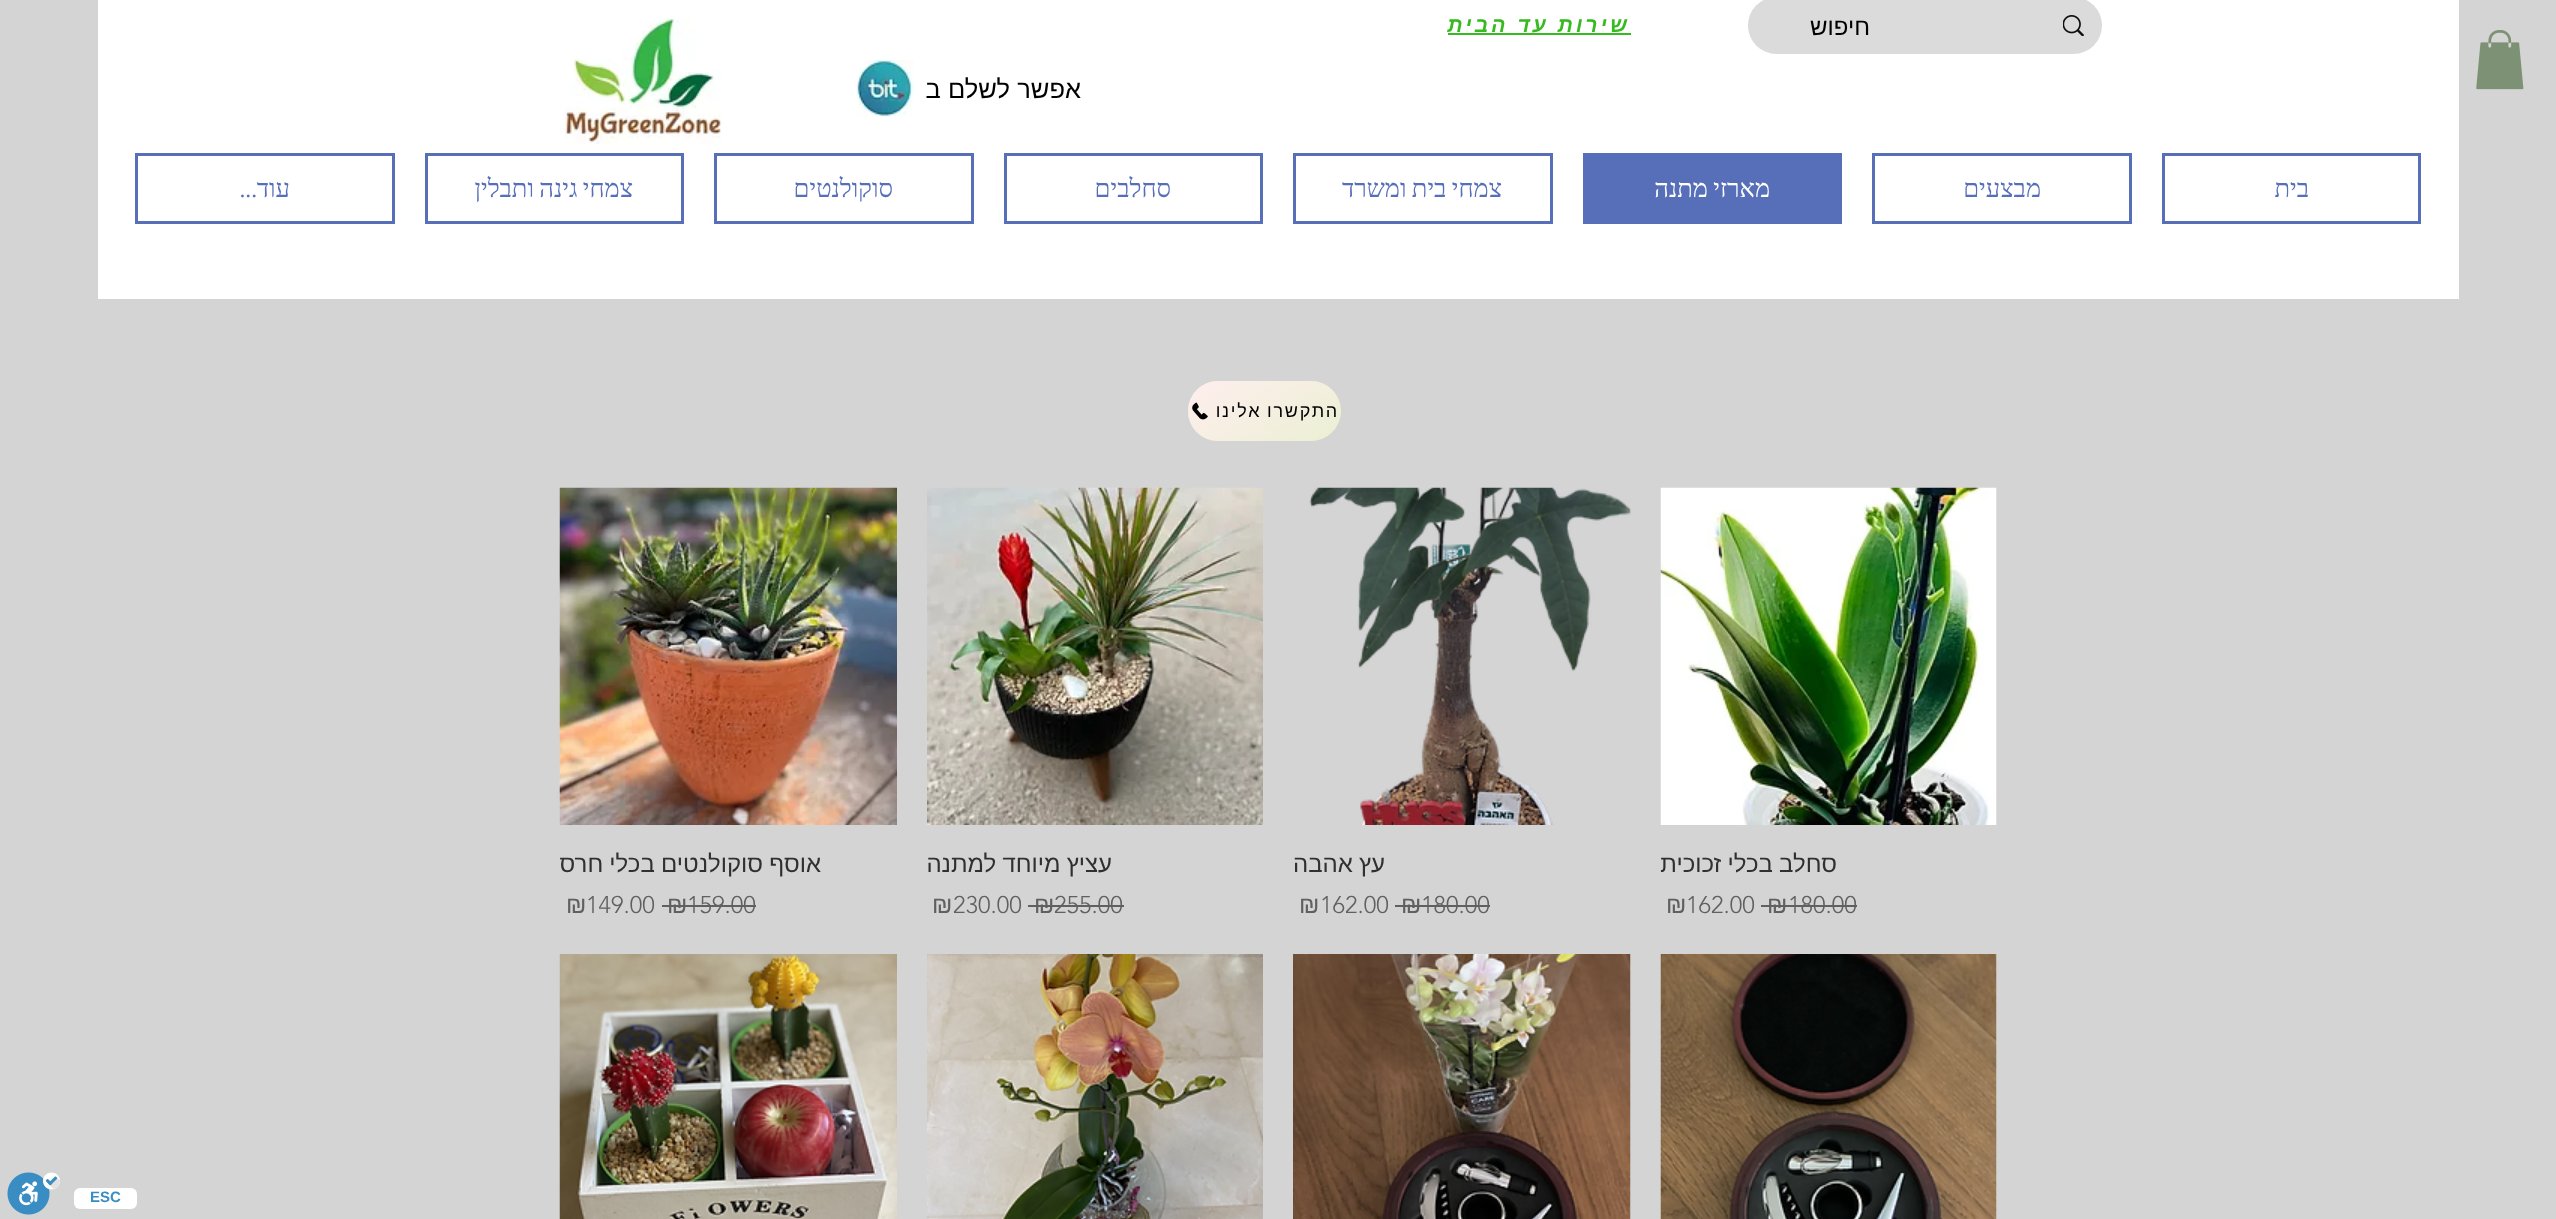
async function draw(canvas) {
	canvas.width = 2556;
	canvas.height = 1219;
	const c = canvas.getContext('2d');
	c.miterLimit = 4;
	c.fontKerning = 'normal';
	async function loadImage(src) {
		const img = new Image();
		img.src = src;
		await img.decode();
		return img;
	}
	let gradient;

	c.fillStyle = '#d4d4d4';
	c.fillRect(0, 0, 2556, 1219);
	c.drawImage(await loadImage('img1.png'), 2476, 30, 48, 60);
	c.fillStyle = '#fff';
	c.fillRect(98, 0, 2361, 299);
	c.fillStyle = '#dbdbdb';
	c.beginPath();
	c.roundRect(1748, -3, 354, 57, 28.5);
	c.fill();
	c.drawImage(await loadImage('img2.png'), 2063, 15, 21, 21);
	c.direction = 'rtl';
	c.font = '24px Liberation Sans';
	c.fillStyle = '#000';
	c.fillText('חיפוש', 1870, 35);
	c.letterSpacing = '3.1px';
	c.font = 'italic bold 21px Liberation Sans';
	c.fillStyle = '#37ba20';
	c.fillText('שירות עד הבית', 1630, 32);
	c.fillRect(1448, 33, 183, 2);
	c.letterSpacing = '0px';
	c.font = '25.5px Liberation Sans';
	c.fillStyle = '#000';
	c.fillText('אפשר לשלם ב', 1081, 98);
	c.drawImage(await loadImage('img3.png'), 855, 60, 59, 57);
	c.drawImage(await loadImage('img4.png'), 564, 18, 158, 126);
	c.strokeStyle = '#566fb8';
	c.lineWidth = 3;
	c.strokeRect(2163.5, 154.5, 256, 68);
	c.font = '25.5px Liberation Serif';
	c.fillStyle = '#566fb8';
	c.fillText('בית', 2309, 197);
	c.strokeRect(1873.5, 154.5, 257, 68);
	c.fillText('מבצעים', 2041, 197);
	c.fillRect(1583, 153, 259, 71);
	c.wordSpacing = '-1px';
	c.fillStyle = '#fff';
	c.fillText('מארזי מתנה', 1770, 197);
	c.strokeRect(1294.5, 154.5, 257, 68);
	c.fillStyle = '#566fb8';
	c.fillText('צמחי בית ומשרד', 1502, 197);
	c.strokeRect(1005.5, 154.5, 256, 68);
	c.wordSpacing = '0px';
	c.fillText('סחלבים', 1171, 197);
	c.strokeRect(715.5, 154.5, 257, 68);
	c.fillText('סוקולנטים', 893, 197);
	c.strokeRect(426.5, 154.5, 256, 68);
	c.wordSpacing = '-1px';
	c.fillText('צמחי גינה ותבלין', 633, 197);
	c.strokeRect(136.5, 154.5, 257, 68);
	c.wordSpacing = '0px';
	c.fillText('עוד', 290, 197);
	c.font = '25.5px EB Garamond';
	c.fillText('...', 257, 197);
	c.fillStyle = '#ebf0d4';
	c.beginPath();
	c.roundRect(1188, 381, 153, 60, 30);
	c.fill();
	gradient = c.createLinearGradient(1225, 355, 1304, 467);
	gradient.addColorStop(0, '#fee');
	gradient.addColorStop(1, '#ffeeee00');
	c.fillStyle = gradient;
	c.beginPath();
	c.roundRect(1188, 381, 153, 60, 30);
	c.fill();
	c.letterSpacing = '1.75px';
	c.wordSpacing = '-1px';
	c.font = '18px Liberation Sans';
	c.fillStyle = '#000';
	c.fillText('התקשרו אלינו', 1339, 417);
	c.drawImage(await loadImage('img5.png'), 1192, 402, 16, 18);
	c.drawImage(await loadImage('img6.png'), 1660, 487, 337, 338);
	c.letterSpacing = '0px';
	c.wordSpacing = '-0.5px';
	c.font = '24px Liberation Sans';
	c.fillStyle = '#303030';
	c.fillText('סחלב בכלי זכוכית', 1837, 872);
	c.wordSpacing = '0px';
	c.direction = 'ltr';
	c.font = '300 24px "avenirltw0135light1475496"';
	c.fillStyle = '#606060';
	c.fillText('180.00', 1788, 913);
	c.font = '24px Liberation Sans';
	c.fillText('₪', 1767, 913);
	c.fillRect(1761, 905, 27, 2);
	c.fillRect(1788, 905, 69, 2);
	c.font = '300 24px "avenirltw0135light1475496"';
	c.fillText('162.00', 1686, 913);
	c.font = '24px Liberation Sans';
	c.fillText('₪', 1666, 913);
	c.drawImage(await loadImage('img7.png'), 1309, 487, 322, 338);
	c.wordSpacing = '-0.5px';
	c.direction = 'rtl';
	c.fillStyle = '#303030';
	c.fillText('עץ אהבה', 1385, 872);
	c.wordSpacing = '0px';
	c.direction = 'ltr';
	c.font = '300 24px "avenirltw0135light1475496"';
	c.fillStyle = '#606060';
	c.fillText('180.00', 1421, 913);
	c.font = '24px Liberation Sans';
	c.fillText('₪', 1401, 913);
	c.fillRect(1395, 905, 26, 2);
	c.fillRect(1421, 905, 69, 2);
	c.font = '300 24px "avenirltw0135light1475496"';
	c.fillText('162.00', 1320, 913);
	c.font = '24px Liberation Sans';
	c.fillText('₪', 1299, 913);
	c.drawImage(await loadImage('img8.png'), 927, 487, 336, 338);
	c.wordSpacing = '-0.5px';
	c.direction = 'rtl';
	c.fillStyle = '#303030';
	c.fillText('עציץ מיוחד למתנה', 1112, 872);
	c.wordSpacing = '0px';
	c.direction = 'ltr';
	c.font = '300 24px "avenirltw0135light1475496"';
	c.fillStyle = '#606060';
	c.fillText('255.00', 1054, 913);
	c.font = '24px Liberation Sans';
	c.fillText('₪', 1034, 913);
	c.fillRect(1028, 905, 27, 2);
	c.fillRect(1055, 905, 69, 2);
	c.font = '300 24px "avenirltw0135light1475496"';
	c.fillText('230.00', 953, 913);
	c.font = '24px Liberation Sans';
	c.fillText('₪', 932, 913);
	c.drawImage(await loadImage('img9.png'), 559, 487, 338, 338);
	c.wordSpacing = '-0.5px';
	c.direction = 'rtl';
	c.fillStyle = '#303030';
	c.fillText('אוסף סוקולנטים בכלי חרס', 821, 872);
	c.wordSpacing = '0px';
	c.direction = 'ltr';
	c.font = '300 24px "avenirltw0135light1475496"';
	c.fillStyle = '#606060';
	c.fillText('159.00', 687, 913);
	c.font = '24px Liberation Sans';
	c.fillText('₪', 667, 913);
	c.fillRect(662, 905, 25, 2);
	c.fillRect(687, 905, 69, 2);
	c.font = '300 24px "avenirltw0135light1475496"';
	c.fillText('149.00', 586, 913);
	c.font = '24px Liberation Sans';
	c.fillText('₪', 566, 913);
	c.drawImage(await loadImage('img10.png'), 1660, 954, 337, 265);
	c.drawImage(await loadImage('img11.png'), 1293, 954, 338, 265);
	c.drawImage(await loadImage('img12.png'), 927, 954, 336, 265);
	c.drawImage(await loadImage('img13.png'), 559, 954, 338, 265);
	c.fillStyle = '#fff';
	c.beginPath();
	c.roundRect(74, 1188, 63, 21, 6);
	c.fill();
	c.font = 'bold 15px Liberation Sans';
	c.fillStyle = '#3a8dc2';
	c.fillText('ESC', 90, 1202);
	c.drawImage(await loadImage('img14.png'), 7, 1172, 53, 43);
}

draw(document.querySelector('canvas'));
